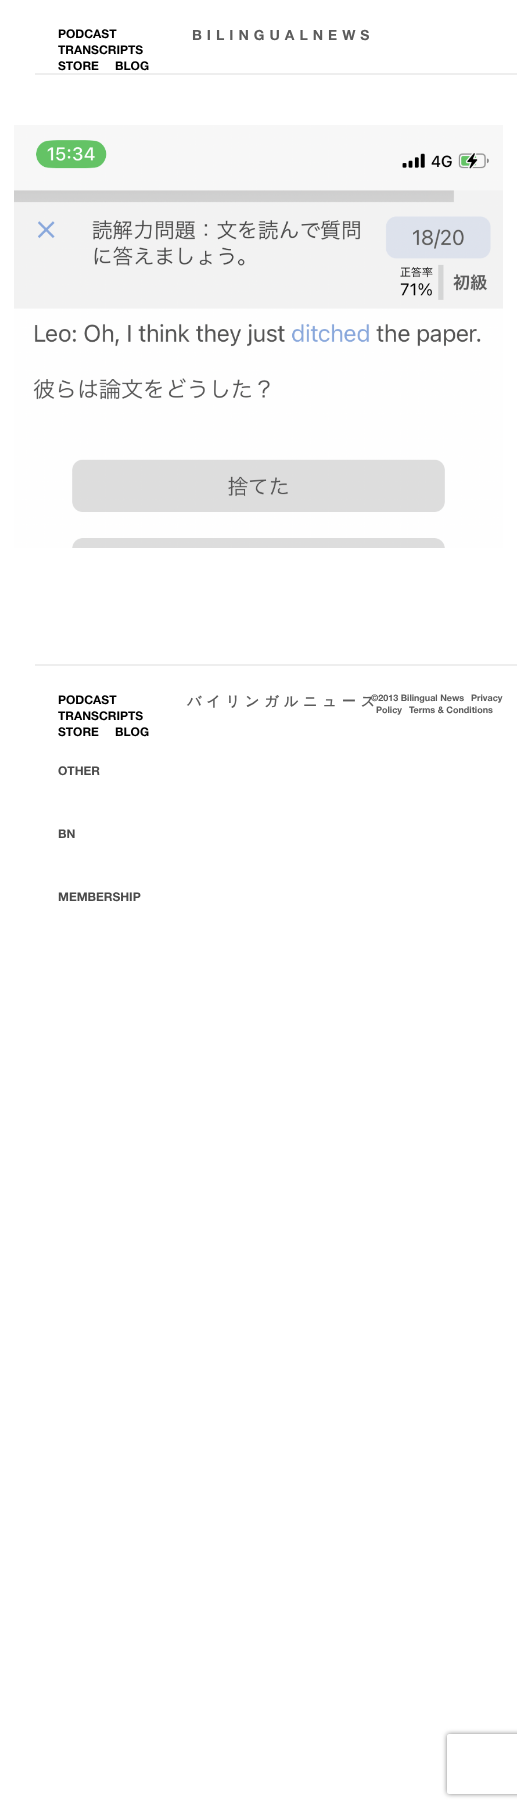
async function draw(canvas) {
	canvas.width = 517;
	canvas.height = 1808;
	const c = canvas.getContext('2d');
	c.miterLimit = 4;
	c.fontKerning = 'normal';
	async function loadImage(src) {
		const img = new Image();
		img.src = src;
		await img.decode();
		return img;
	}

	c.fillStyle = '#fff';
	c.fillRect(0, 0, 517, 1808);
	c.fillStyle = '#eee';
	c.fillRect(35, 73, 482, 2);
	c.font = 'bold 12px Helvetica Neue';
	c.fillStyle = '#000';
	for (const [text, x, y] of [
		['PODCAST', 58, 38],
		['TRANSCRIPTS', 58, 54],
		['STORE', 58, 70],
		['BLOG', 115, 70],
	]) {
		c.fillText(text, x, y);
	}
	c.letterSpacing = '5px';
	c.font = 'bold 14px Helvetica Neue';
	c.fillStyle = '#5c5c5c';
	c.fillText('BILINGUALNEWS', 192, 40);
	c.drawImage(await loadImage('img1.png'), 14, 125, 489, 423);
	c.fillStyle = '#eee';
	c.fillRect(35, 664, 482, 2);
	c.letterSpacing = '0px';
	c.font = 'bold 12px Helvetica Neue';
	c.fillStyle = '#000';
	for (const [text, x, y] of [
		['PODCAST', 58, 704],
		['TRANSCRIPTS', 58, 720],
		['STORE', 58, 736],
		['BLOG', 115, 736],
	]) {
		c.fillText(text, x, y);
	}
	c.fillStyle = '#4b4b4b';
	for (const [text, x, y] of [
		['OTHER', 58, 775],
		['BN', 58, 838],
		['MEMBERSHIP', 58, 901],
	]) {
		c.fillText(text, x, y);
	}
	c.letterSpacing = '5px';
	c.font = 'bold 14px WenQuanYi Zen Hei';
	c.fillStyle = '#5c5c5c';
	c.fillText('バイリンガルニュース', 187, 706);
	c.letterSpacing = '0px';
	c.font = 'bold 9px Helvetica Neue';
	for (const [text, x, y] of [
		['©2013 Bilingual News', 371, 701],
		['Privacy', 471, 701],
		['Policy', 376, 713],
		['Terms & Conditions', 409, 713],
	]) {
		c.fillText(text, x, y);
	}
	c.save();
	c.beginPath();
	c.moveTo(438, 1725);
	c.lineTo(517, 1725);
	c.lineTo(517, 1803);
	c.lineTo(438, 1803);
	c.closePath();
	c.moveTo(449, 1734);
	c.lineTo(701, 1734);
	c.bezierCurveTo(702, 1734, 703, 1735, 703, 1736);
	c.lineTo(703, 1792);
	c.bezierCurveTo(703, 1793, 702, 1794, 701, 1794);
	c.lineTo(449, 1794);
	c.bezierCurveTo(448, 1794, 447, 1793, 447, 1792);
	c.lineTo(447, 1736);
	c.bezierCurveTo(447, 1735, 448, 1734, 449, 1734);
	c.closePath();
	c.clip('evenodd');
	c.fillStyle = '#808080';
	c.filter = 'blur(2.5px)';
	c.beginPath();
	c.roundRect(447, 1734, 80, 60, 2);
	c.fill();
	c.filter = 'none';
	c.restore();
}

draw(document.querySelector('canvas'));
